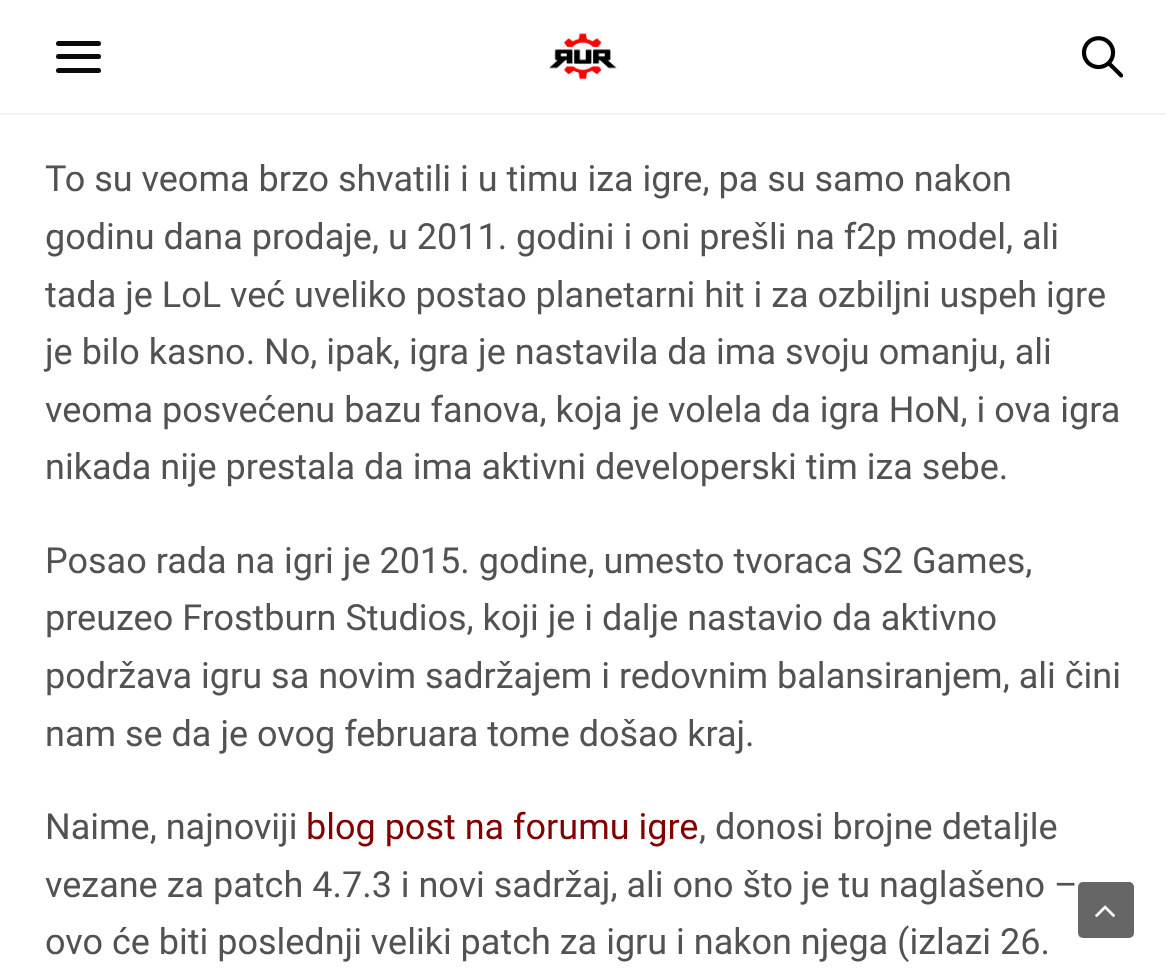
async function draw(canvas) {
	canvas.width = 1166;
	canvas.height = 971;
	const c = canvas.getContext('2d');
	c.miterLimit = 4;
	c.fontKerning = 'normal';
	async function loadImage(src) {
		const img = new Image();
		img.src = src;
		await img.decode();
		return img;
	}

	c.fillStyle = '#fff';
	c.fillRect(0, 0, 1166, 971);
	c.fillStyle = '#f2f2f2';
	c.fillRect(0, 113, 1166, 2);
	c.fillStyle = '#0a0a0a';
	c.beginPath();
	c.roundRect(56, 41, 45, 5, 2.5);
	c.fill();
	c.beginPath();
	c.roundRect(56, 54, 45, 5, 2.5);
	c.fill();
	c.beginPath();
	c.roundRect(56, 68, 45, 5, 2.5);
	c.fill();
	c.drawImage(await loadImage('img1.png'), 549, 33, 68, 47);
	c.drawImage(await loadImage('img2.png'), 1081, 36, 42, 42);
	c.font = '36px Roboto';
	c.fillStyle = '#525252';
	for (const [text, x, y] of [
		['To su veoma brzo shvatili i u timu iza igre, pa su samo nakon', 45, 191],
		['godinu dana prodaje, u 2011. godini i oni prešli na f2p model, ali', 45, 249],
		['tada je LoL već uveliko postao planetarni hit i za ozbiljni uspeh igre', 45, 307],
		['je bilo kasno. No, ipak, igra je nastavila da ima svoju omanju, ali', 45, 364],
		['veoma posvećenu bazu fanova, koja je volela da igra HoN, i ova igra', 45, 422],
		['nikada nije prestala da ima aktivni developerski tim iza sebe.', 45, 479],
		['Posao rada na igri je 2015. godine, umesto tvoraca S2 Games,', 45, 573],
		['preuzeo Frostburn Studios, koji je i dalje nastavio da aktivno', 45, 630],
		['podržava igru sa novim sadržajem i redovnim balansiranjem, ali čini', 45, 688],
		['nam se da je ovog februara tome došao kraj.', 45, 746],
		['Naime, najnoviji', 45, 839],
	]) {
		c.fillText(text, x, y);
	}
	c.fillStyle = '#810000';
	c.fillText('blog post na forumu igre', 306, 839);
	c.fillStyle = '#525252';
	for (const [text, x, y] of [
		[', donosi brojne detaljle', 699, 839],
		['vezane za patch 4.7.3 i novi sadržaj, ali ono što je tu naglašeno –', 45, 897],
		['ovo će biti poslednji veliki patch za igru i nakon njega (izlazi 26.', 45, 954],
	]) {
		c.fillText(text, x, y);
	}
	c.fillStyle = '#666';
	c.beginPath();
	c.roundRect(1078, 882, 56, 56, 5);
	c.fill();
	c.drawImage(await loadImage('img3.png'), 1095, 905, 20, 12);
}

draw(document.querySelector('canvas'));
